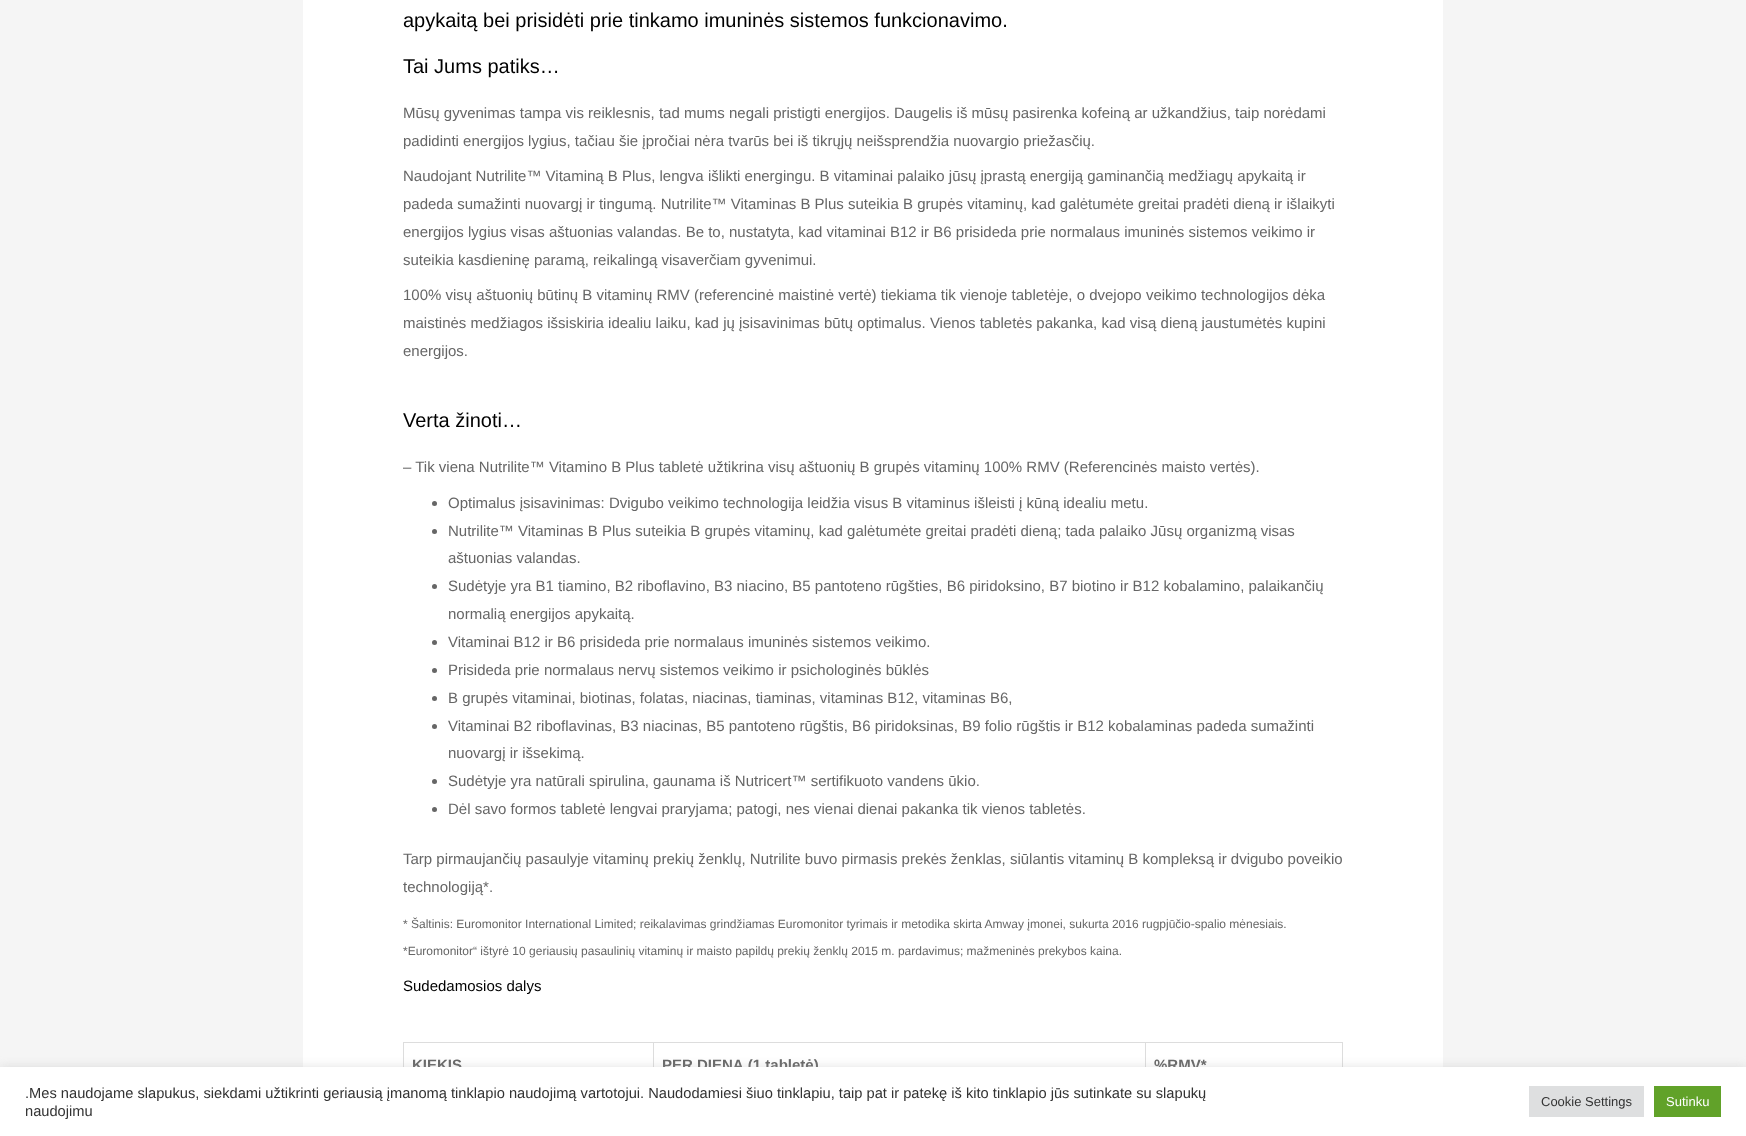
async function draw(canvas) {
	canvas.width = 1746;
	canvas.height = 1136;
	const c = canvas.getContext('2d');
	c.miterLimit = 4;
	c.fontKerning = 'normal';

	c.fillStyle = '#f5f5f5';
	c.fillRect(0, 0, 1746, 1136);
	c.fillStyle = '#fff';
	c.fillRect(303, 0, 1140, 1067);
	c.font = '20px Liberation Sans';
	c.fillStyle = '#000';
	c.fillText('apykaitą bei prisidėti prie tinkamo imuninės sistemos funkcionavimo.', 403, 27);
	c.fillText('Tai Jums patiks…', 403, 73);
	c.font = '15px Liberation Sans';
	c.fillStyle = '#666';
	for (const [text, x, y] of [
		['Mūsų gyvenimas tampa vis reiklesnis, tad mums negali pristigti energijos. Daugelis iš mūsų pasirenka kofeiną ar užkandžius, taip norėdami', 403, 118],
		['padidinti energijos lygius, tačiau šie įpročiai nėra tvarūs bei iš tikrųjų neišsprendžia nuovargio priežasčių.', 403, 146],
		['Naudojant Nutrilite™ Vitaminą B Plus, lengva išlikti energingu. B vitaminai palaiko jūsų įprastą energiją gaminančią medžiagų apykaitą ir', 403, 181],
		['padeda sumažinti nuovargį ir tingumą. Nutrilite™ Vitaminas B Plus suteikia B grupės vitaminų, kad galėtumėte greitai pradėti dieną ir išlaikyti', 403, 209],
		['energijos lygius visas aštuonias valandas. Be to, nustatyta, kad vitaminai B12 ir B6 prisideda prie normalaus imuninės sistemos veikimo ir', 403, 237],
		['suteikia kasdieninę paramą, reikalingą visaverčiam gyvenimui.', 403, 265],
		['100% visų aštuonių būtinų B vitaminų RMV (referencinė maistinė vertė) tiekiama tik vienoje tabletėje, o dvejopo veikimo technologijos dėka', 403, 300],
		['maistinės medžiagos išsiskiria idealiu laiku, kad jų įsisavinimas būtų optimalus. Vienos tabletės pakanka, kad visą dieną jaustumėtės kupini', 403, 328],
		['energijos.', 403, 356],
	]) {
		c.fillText(text, x, y);
	}
	c.font = '20px Liberation Sans';
	c.fillStyle = '#000';
	c.fillText('Verta žinoti…', 403, 427);
	c.font = '15px Liberation Sans';
	c.fillStyle = '#666';
	c.fillText('– Tik viena Nutrilite™ Vitamino B Plus tabletė užtikrina visų aštuonių B grupės vitaminų 100% RMV (Referencinės maisto vertės).', 403, 472);
	c.beginPath();
	c.arc(434.5, 503.5, 2.5, 0, 2 * Math.PI);
	c.fill();
	c.fillText('Optimalus įsisavinimas: Dvigubo veikimo technologija leidžia visus B vitaminus išleisti į kūną idealiu metu.', 448, 508);
	c.beginPath();
	c.arc(434.5, 531.5, 2.5, 0, 2 * Math.PI);
	c.fill();
	c.fillText('Nutrilite™ Vitaminas B Plus suteikia B grupės vitaminų, kad galėtumėte greitai pradėti dieną; tada palaiko Jūsų organizmą visas', 448, 536);
	c.fillText('aštuonias valandas.', 448, 563);
	c.beginPath();
	c.arc(434.5, 586.5, 2.5, 0, 2 * Math.PI);
	c.fill();
	c.fillText('Sudėtyje yra B1 tiamino, B2 riboflavino, B3 niacino, B5 pantoteno rūgšties, B6 piridoksino, B7 biotino ir B12 kobalamino, palaikančių', 448, 591);
	c.fillText('normalią energijos apykaitą.', 448, 619);
	c.beginPath();
	c.arc(434.5, 642.5, 2.5, 0, 2 * Math.PI);
	c.fill();
	c.fillText('Vitaminai B12 ir B6 prisideda prie normalaus imuninės sistemos veikimo.', 448, 647);
	c.beginPath();
	c.arc(434.5, 670.5, 2.5, 0, 2 * Math.PI);
	c.fill();
	c.fillText('Prisideda prie normalaus nervų sistemos veikimo ir psichologinės būklės', 448, 675);
	c.beginPath();
	c.arc(434.5, 698.5, 2.5, 0, 2 * Math.PI);
	c.fill();
	c.fillText('B grupės vitaminai, biotinas, folatas, niacinas, tiaminas, vitaminas B12, vitaminas B6,', 448, 703);
	c.beginPath();
	c.arc(434.5, 726.5, 2.5, 0, 2 * Math.PI);
	c.fill();
	c.fillText('Vitaminai B2 riboflavinas, B3 niacinas, B5 pantoteno rūgštis, B6 piridoksinas, B9 folio rūgštis ir B12 kobalaminas padeda sumažinti', 448, 731);
	c.fillText('nuovargį ir išsekimą.', 448, 758);
	c.beginPath();
	c.arc(434.5, 781.5, 2.5, 0, 2 * Math.PI);
	c.fill();
	c.fillText('Sudėtyje yra natūrali spirulina, gaunama iš Nutricert™ sertifikuoto vandens ūkio.', 448, 786);
	c.beginPath();
	c.arc(434.5, 809.5, 2.5, 0, 2 * Math.PI);
	c.fill();
	for (const [text, x, y] of [
		['Dėl savo formos tabletė lengvai praryjama; patogi, nes vienai dienai pakanka tik vienos tabletės.', 448, 814],
		['Tarp pirmaujančių pasaulyje vitaminų prekių ženklų, Nutrilite buvo pirmasis prekės ženklas, siūlantis vitaminų B kompleksą ir dvigubo poveikio', 403, 864],
		['technologiją*.', 403, 892],
	]) {
		c.fillText(text, x, y);
	}
	c.font = '12px Liberation Sans';
	c.fillText('* Šaltinis: Euromonitor International Limited; reikalavimas grindžiamas Euromonitor tyrimais ir metodika skirta Amway įmonei, sukurta 2016 rugpjūčio-spalio mėnesiais.', 403, 928);
	c.fillText('*Euromonitor“ ištyrė 10 geriausių pasaulinių vitaminų ir maisto papildų prekių ženklų 2015 m. pardavimus; mažmeninės prekybos kaina.', 403, 955);
	c.font = '15px Liberation Sans';
	c.fillStyle = '#000';
	c.fillText('Sudedamosios dalys', 403, 991);
	for (const [x, y, w, h, color] of [
		[403, 1042, 940, 1, '#ddd'],
		[403, 1042, 1, 25, '#ddd'],
		[653, 1043, 1, 24, '#ddd'],
	]) {
		c.fillStyle = color;
		c.fillRect(x, y, w, h);
	}
	c.font = 'bold 15px Liberation Sans';
	c.fillStyle = '#666';
	c.fillText('KIEKIS', 412, 1070);
	c.fillStyle = '#ddd';
	c.fillRect(1145, 1043, 1, 24);
	c.fillStyle = '#666';
	c.fillText('PER DIENĄ (1 tabletė)', 662, 1070);
	c.fillStyle = '#ddd';
	c.fillRect(1342, 1043, 1, 24);
	c.fillStyle = '#666';
	c.fillText('%RMV*', 1154, 1070);
	c.fillStyle = '#acabab4d';
	c.filter = 'blur(5px)';
	c.beginPath();
	c.rect(0, 1066, 1746, 69);
	c.fill();
	c.filter = 'none';
	c.fillStyle = '#fff';
	c.fillRect(0, 1067, 1746, 69);
	c.font = '14.67px Liberation Sans';
	c.fillStyle = '#333';
	c.fillText('.Mes naudojame slapukus, siekdami užtikrinti geriausią įmanomą tinklapio naudojimą vartotojui. Naudodamiesi šiuo tinklapiu, taip pat ir patekę iš kito tinklapio jūs sutinkate su slapukų', 25, 1098);
	c.fillText('naudojimu', 25, 1116);
	c.fillStyle = '#dedfe0';
	c.fillRect(1529, 1086, 115, 31);
	c.font = '13px Liberation Sans';
	c.fillStyle = '#333';
	c.fillText('Cookie Settings', 1541, 1106);
	c.fillStyle = '#61a229';
	c.fillRect(1654, 1086, 67, 31);
	c.fillStyle = '#fff';
	c.fillText('Sutinku', 1666, 1106);
}

draw(document.querySelector('canvas'));
